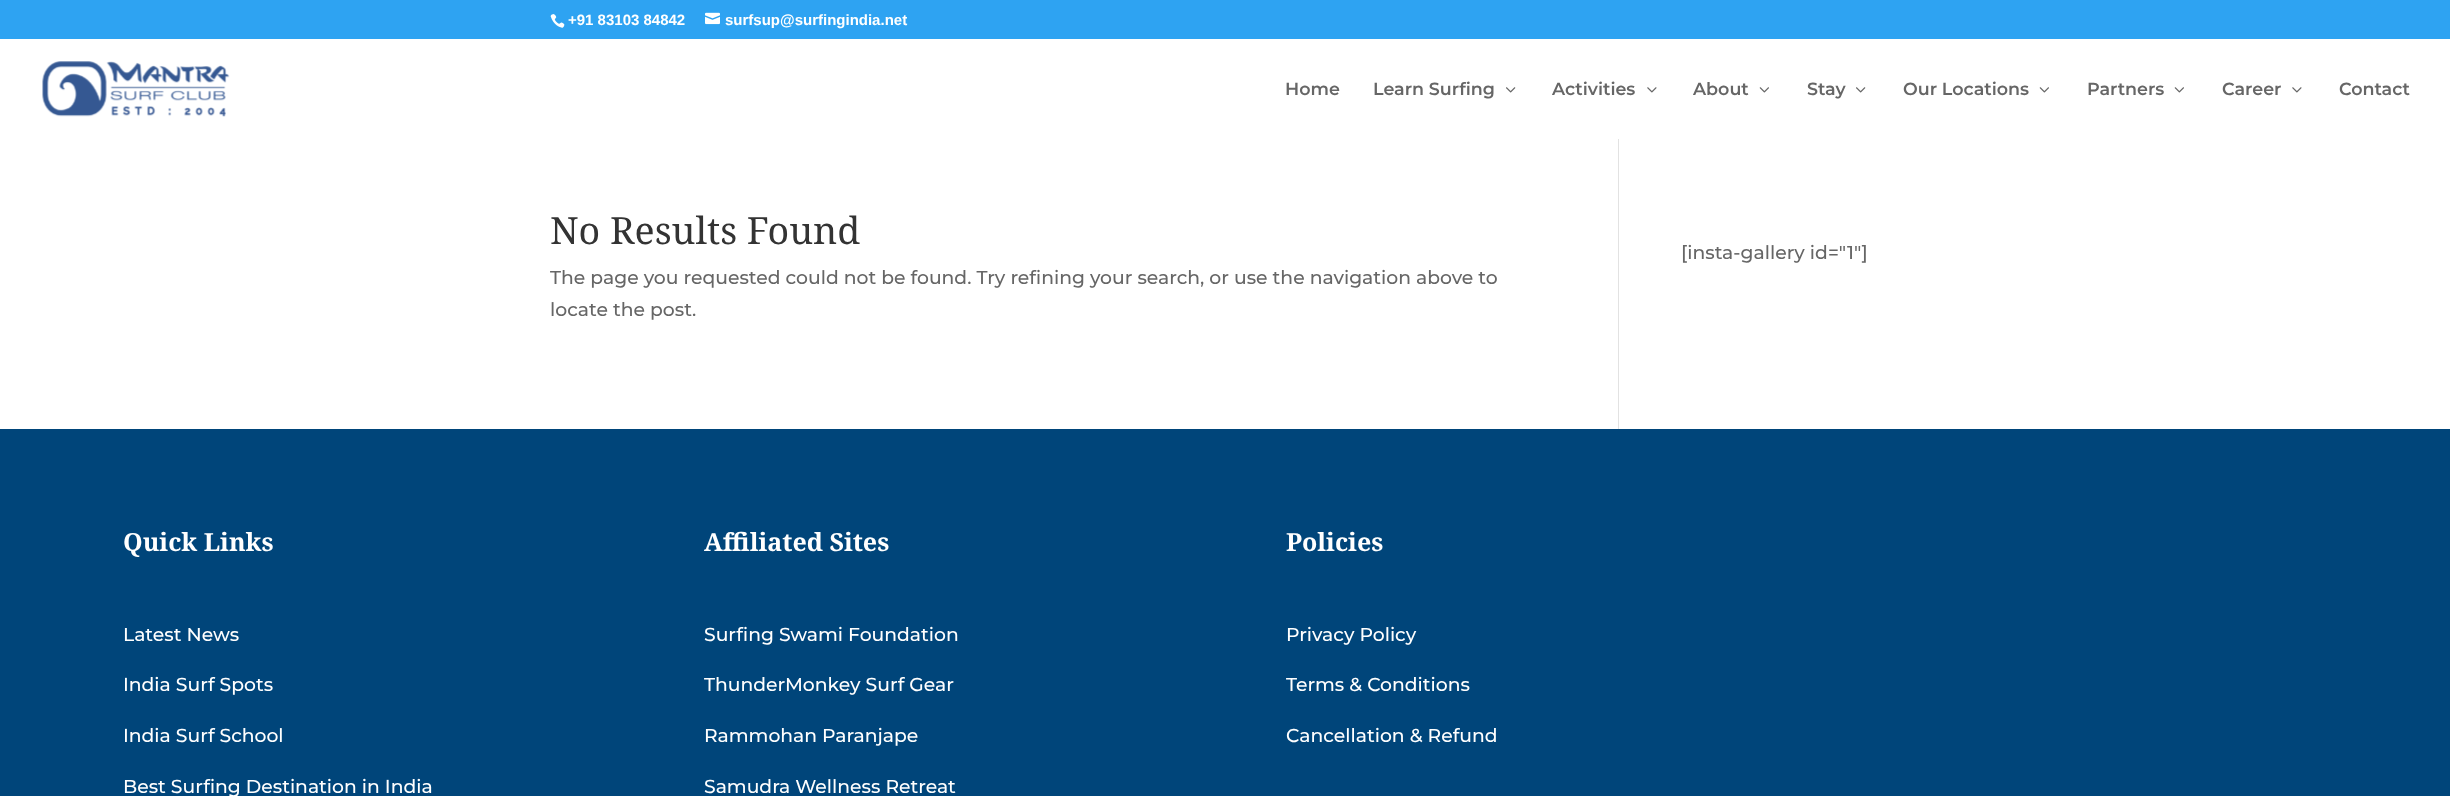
async function draw(canvas) {
	canvas.width = 2450;
	canvas.height = 796;
	const c = canvas.getContext('2d');
	c.miterLimit = 4;
	c.fontKerning = 'normal';
	async function loadImage(src) {
		const img = new Image();
		img.src = src;
		await img.decode();
		return img;
	}

	c.fillStyle = '#fff';
	c.fillRect(0, 0, 2450, 796);
	c.fillStyle = '#2ea3f2';
	c.fillRect(0, 0, 2450, 39);
	c.drawImage(await loadImage('img1.png'), 550, 14, 15, 14);
	c.font = 'bold 15px Liberation Sans';
	c.fillStyle = '#fff';
	c.fillText('+91 83103 84842', 568, 25);
	c.drawImage(await loadImage('img2.png'), 705, 12, 15, 13);
	c.fillText('surfsup@surfingindia.net', 725, 25);
	c.drawImage(await loadImage('img3.png'), 42, 61, 188, 56);
	c.font = '100 17.5px "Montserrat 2"';
	c.fillStyle = '#666';
	c.fillText('Home', 1285, 95);
	c.fillText('Learn Surfing', 1373, 95);
	c.drawImage(await loadImage('img4.png'), 1506, 87, 10, 6);
	c.fillText('Activities', 1552, 95);
	c.drawImage(await loadImage('img5.png'), 1647, 87, 10, 6);
	c.fillText('About', 1693, 95);
	c.drawImage(await loadImage('img6.png'), 1759, 87, 10, 6);
	c.fillText('Stay', 1807, 95);
	c.drawImage(await loadImage('img4.png'), 1856, 87, 10, 6);
	c.fillText('Our Locations', 1903, 95);
	c.drawImage(await loadImage('img6.png'), 2039, 87, 10, 6);
	c.fillText('Partners', 2087, 95);
	c.drawImage(await loadImage('img6.png'), 2174, 87, 10, 6);
	c.fillText('Career', 2222, 95);
	c.drawImage(await loadImage('img5.png'), 2292, 87, 10, 6);
	c.fillText('Contact', 2339, 95);
	c.fillStyle = '#e2e2e2';
	c.fillRect(1618, 139, 1, 290);
	c.font = '37.5px Noto Serif';
	c.fillStyle = '#333';
	c.fillText('No Results Found', 550, 244);
	c.font = '100 18.75px Montserrat';
	c.fillStyle = '#666';
	for (const [text, x, y] of [
		['The page you requested could not be found. Try refining your search, or use the navigation above to', 550, 284],
		['locate the post.', 550, 316],
		['[insta-gallery id="1"]', 1681, 259],
	]) {
		c.fillText(text, x, y);
	}
	c.fillStyle = '#00457a';
	c.fillRect(0, 429, 2450, 367);
	c.font = 'bold 25px Noto Serif';
	c.fillStyle = '#fff';
	c.fillText('Quick Links', 123, 551);
	c.font = '100 18.75px Montserrat';
	for (const [text, x, y] of [
		['Latest News', 123, 641],
		['India Surf Spots', 123, 691],
		['India Surf School', 123, 742],
		['Best Surfing Destination in India', 123, 793],
	]) {
		c.fillText(text, x, y);
	}
	c.font = 'bold 25px Noto Serif';
	c.fillText('Affiliated Sites', 704, 551);
	c.font = '100 18.75px Montserrat';
	for (const [text, x, y] of [
		['Surfing Swami Foundation', 704, 641],
		['ThunderMonkey Surf Gear', 704, 691],
		['Rammohan Paranjape', 704, 742],
		['Samudra Wellness Retreat', 704, 793],
	]) {
		c.fillText(text, x, y);
	}
	c.font = 'bold 25px Noto Serif';
	c.fillText('Policies', 1286, 551);
	c.font = '100 18.75px Montserrat';
	for (const [text, x, y] of [
		['Privacy Policy', 1286, 641],
		['Terms & Conditions', 1286, 691],
		['Cancellation & Refund', 1286, 742],
	]) {
		c.fillText(text, x, y);
	}
}

draw(document.querySelector('canvas'));
